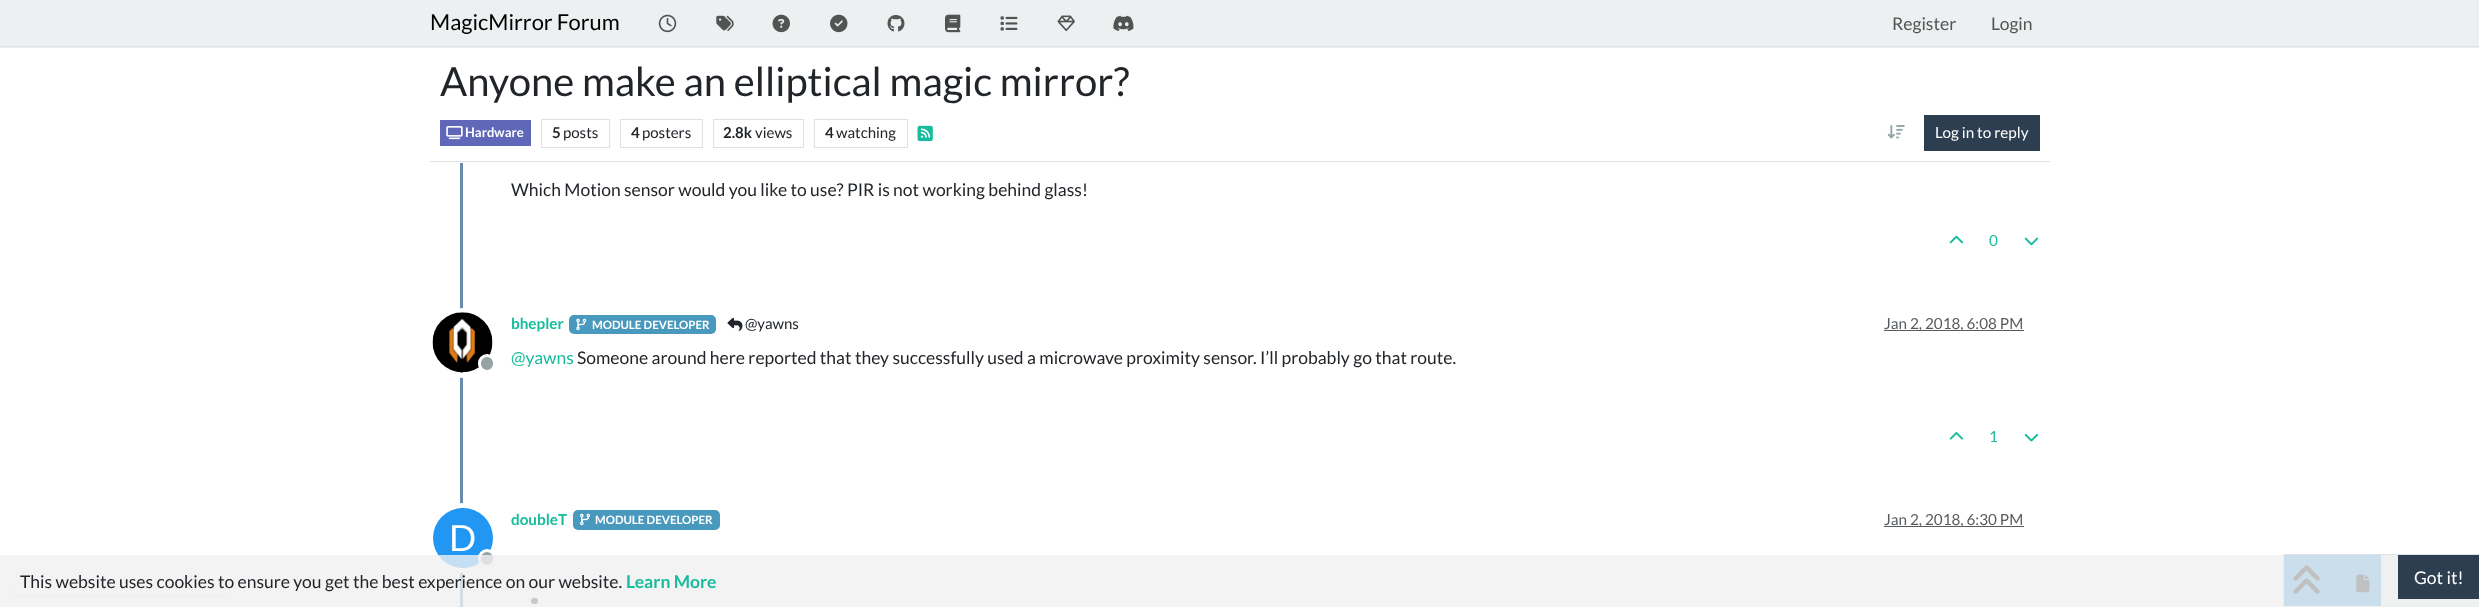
async function draw(canvas) {
	canvas.width = 2479;
	canvas.height = 607;
	const c = canvas.getContext('2d');
	c.miterLimit = 4;
	c.fontKerning = 'normal';
	async function loadImage(src) {
		const img = new Image();
		img.src = src;
		await img.decode();
		return img;
	}

	c.fillStyle = '#fff';
	c.fillRect(0, 0, 2479, 607);
	c.fillStyle = '#ecf0f1';
	c.fillRect(0, 0, 2479, 48);
	c.fillStyle = '#dee2e6';
	c.fillRect(0, 46, 2479, 1);
	c.font = '21.9px Lato';
	c.fillStyle = '#000';
	c.fillText('MagicMirror Forum', 430, 30);
	c.drawImage(await loadImage('img1.png'), 658, 14, 19, 19);
	c.drawImage(await loadImage('img2.png'), 716, 15, 18, 16);
	c.drawImage(await loadImage('img3.png'), 772, 14, 18, 19);
	c.drawImage(await loadImage('img4.png'), 830, 14, 18, 19);
	c.drawImage(await loadImage('img5.png'), 887, 15, 18, 17);
	c.drawImage(await loadImage('img6.png'), 945, 14, 16, 19);
	c.drawImage(await loadImage('img7.png'), 1000, 16, 18, 15);
	c.drawImage(await loadImage('img8.png'), 1057, 15, 18, 17);
	c.drawImage(await loadImage('img9.png'), 1113, 15, 21, 16);
	c.font = '17.5px Lato';
	c.fillStyle = '#535454';
	c.fillText('Register', 1892, 30);
	c.fillText('Login', 1991, 30);
	c.fillStyle = '#dee2e6';
	c.fillRect(430, 161, 1620, 1);
	c.font = '40px Lato';
	c.fillStyle = '#212529';
	c.fillText('Anyone make an elliptical magic mirror?', 440, 96);
	c.fillStyle = '#6067b8';
	c.fillRect(440, 120, 91, 26);
	c.drawImage(await loadImage('img10.png'), 446, 126, 17, 14);
	c.font = 'bold 13px Lato';
	c.fillStyle = '#fff';
	c.fillText('Hardware', 465, 137);
	c.strokeStyle = '#dee2e6';
	c.strokeRect(541.5, 119.5, 68, 28);
	c.font = 'bold 15px Lato';
	c.fillStyle = '#212529';
	c.fillText('5', 552, 138);
	c.font = '15px Lato';
	c.fillText('posts', 563, 138);
	c.strokeRect(620.5, 119.5, 82, 28);
	c.font = 'bold 15px Lato';
	c.fillText('4', 631, 138);
	c.font = '15px Lato';
	c.fillText('posters', 642, 138);
	c.strokeRect(713.5, 119.5, 90, 28);
	c.font = 'bold 15px Lato';
	c.fillText('2.8k', 723, 138);
	c.font = '15px Lato';
	c.fillText('views', 755, 138);
	c.strokeRect(814.5, 119.5, 93, 28);
	c.font = 'bold 15px Lato';
	c.fillText('4', 825, 138);
	c.font = '15px Lato';
	c.fillText('watching', 836, 138);
	c.drawImage(await loadImage('img11.png'), 917, 125, 16, 17);
	c.drawImage(await loadImage('img12.png'), 1887, 125, 18, 14);
	c.fillStyle = '#2c3e50';
	c.fillRect(1924, 115, 116, 36);
	c.font = '15.25px Lato';
	c.fillStyle = '#fff';
	c.fillText('Log in to reply', 1935, 138);
	c.fillStyle = '#698bac';
	c.fillRect(460, 163, 3, 444);
	c.font = '17.5px Lato';
	c.fillStyle = '#212529';
	c.fillText('Which Motion sensor would you like to use? PIR is not working behind glass!', 511, 196);
	c.drawImage(await loadImage('img13.png'), 1949, 235, 15, 9);
	c.font = '15.25px Lato';
	c.fillStyle = '#18bc9c';
	c.fillText('0', 1989, 246);
	c.drawImage(await loadImage('img14.png'), 2024, 237, 15, 9);
	c.beginPath();
	c.arc(463, 343, 32.5, 0, 2 * Math.PI);
	c.strokeStyle = '#fff';
	c.lineWidth = 5;
	c.stroke();
	c.drawImage(await loadImage('img15.png'), 432, 312, 61, 61);
	c.fillStyle = '#95a5a6';
	c.beginPath();
	c.roundRect(479.5, 355.5, 15, 16, 7.5);
	c.fill();
	c.lineWidth = 3;
	c.stroke();
	c.font = 'bold 15.25px Lato';
	c.fillStyle = '#18bc9c';
	c.fillText('bhepler', 511, 329);
	c.fillStyle = '#4998bd';
	c.beginPath();
	c.roundRect(569, 315, 147, 19, 5);
	c.fill();
	c.drawImage(await loadImage('img16.png'), 576, 318, 11, 13);
	c.font = 'bold 11.5px Lato';
	c.fillStyle = '#fff';
	c.fillText('MODULE DEVELOPER', 592, 329);
	c.drawImage(await loadImage('img17.png'), 727, 317, 16, 14);
	c.font = '15px Lato';
	c.fillStyle = '#212529';
	c.fillText('@yawns', 745, 329);
	c.fillStyle = '#595c5f';
	c.fillRect(1884, 330, 140, 1);
	c.font = '15.25px Lato';
	c.fillStyle = '#585b5e';
	c.fillText('Jan 2, 2018, 6:08 PM', 1884, 329);
	c.font = '17.5px Lato';
	c.fillStyle = '#18bc9c';
	c.fillText('@yawns', 511, 364);
	c.fillStyle = '#212529';
	c.fillText('Someone around here reported that they successfully used a microwave proximity sensor. I’ll probably go that route.', 577, 364);
	c.drawImage(await loadImage('img18.png'), 1949, 432, 15, 8);
	c.font = '15.25px Lato';
	c.fillStyle = '#18bc9c';
	c.fillText('1', 1989, 442);
	c.drawImage(await loadImage('img19.png'), 2024, 433, 15, 9);
	c.font = 'bold 15.25px Lato';
	c.fillText('doubleT', 511, 525);
	c.fillStyle = '#4998bd';
	c.beginPath();
	c.roundRect(573, 510, 147, 20, 5);
	c.fill();
	c.drawImage(await loadImage('img20.png'), 580, 513, 10, 13);
	c.font = 'bold 11.5px Lato';
	c.fillStyle = '#fff';
	c.fillText('MODULE DEVELOPER', 595, 524);
	c.fillStyle = '#595c5f';
	c.fillRect(1884, 526, 140, 1);
	c.font = '15.25px Lato';
	c.fillStyle = '#585b5e';
	c.fillText('Jan 2, 2018, 6:30 PM', 1884, 525);
	c.beginPath();
	c.arc(463, 538, 32.5, 0, 2 * Math.PI);
	c.lineWidth = 5;
	c.stroke();
	c.fillStyle = '#2196f3';
	c.beginPath();
	c.arc(463, 538, 30, 0, 2 * Math.PI);
	c.fill();
	c.font = '36px Lato';
	c.fillStyle = '#fff';
	c.fillText('D', 449, 551);
	c.fillStyle = '#95a5a6';
	c.beginPath();
	c.roundRect(479.5, 550.5, 15, 16, 7.5);
	c.fill();
	c.lineWidth = 3;
	c.stroke();
	c.fillStyle = '#212529';
	c.beginPath();
	c.roundRect(531, 598, 7, 6, 3);
	c.fill();
	c.fillStyle = '#ecf0f1';
	c.beginPath();
	c.rect(2283.5, 554.5, 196, 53);
	c.fill();
	c.strokeStyle = '#dee2e6';
	c.lineWidth = 1;
	c.stroke();
	c.fillStyle = '#3498db';
	c.fillRect(2284, 555, 97, 51);
	c.drawImage(await loadImage('img21.png'), 2293, 565, 27, 29);
	c.drawImage(await loadImage('img22.png'), 2356, 574, 14, 19);
	c.fillStyle = '#0000001a';
	c.filter = 'blur(2px)';
	c.beginPath();
	c.roundRect(13, 584, 212, 12, 6);
	c.fill();
	c.filter = 'none';
	c.fillStyle = '#fff';
	c.beginPath();
	c.roundRect(13, 583, 212, 12, 6);
	c.fill();
	c.fillStyle = '#f0f0f0cc';
	c.fillRect(0, 555, 2479, 52);
	c.font = '17.5px Lato';
	c.fillStyle = '#212529';
	c.fillText('This website uses cookies to ensure you get the best experience on our website.', 20, 588);
	c.font = 'bold 17.5px Lato';
	c.fillStyle = '#18bc9c';
	c.fillText('Learn More', 626, 588);
	c.fillStyle = '#2c3e50';
	c.fillRect(2398, 555, 81, 44);
	c.font = '17.5px Lato';
	c.fillStyle = '#fff';
	c.fillText('Got it!', 2414, 584);
}

draw(document.querySelector('canvas'));
